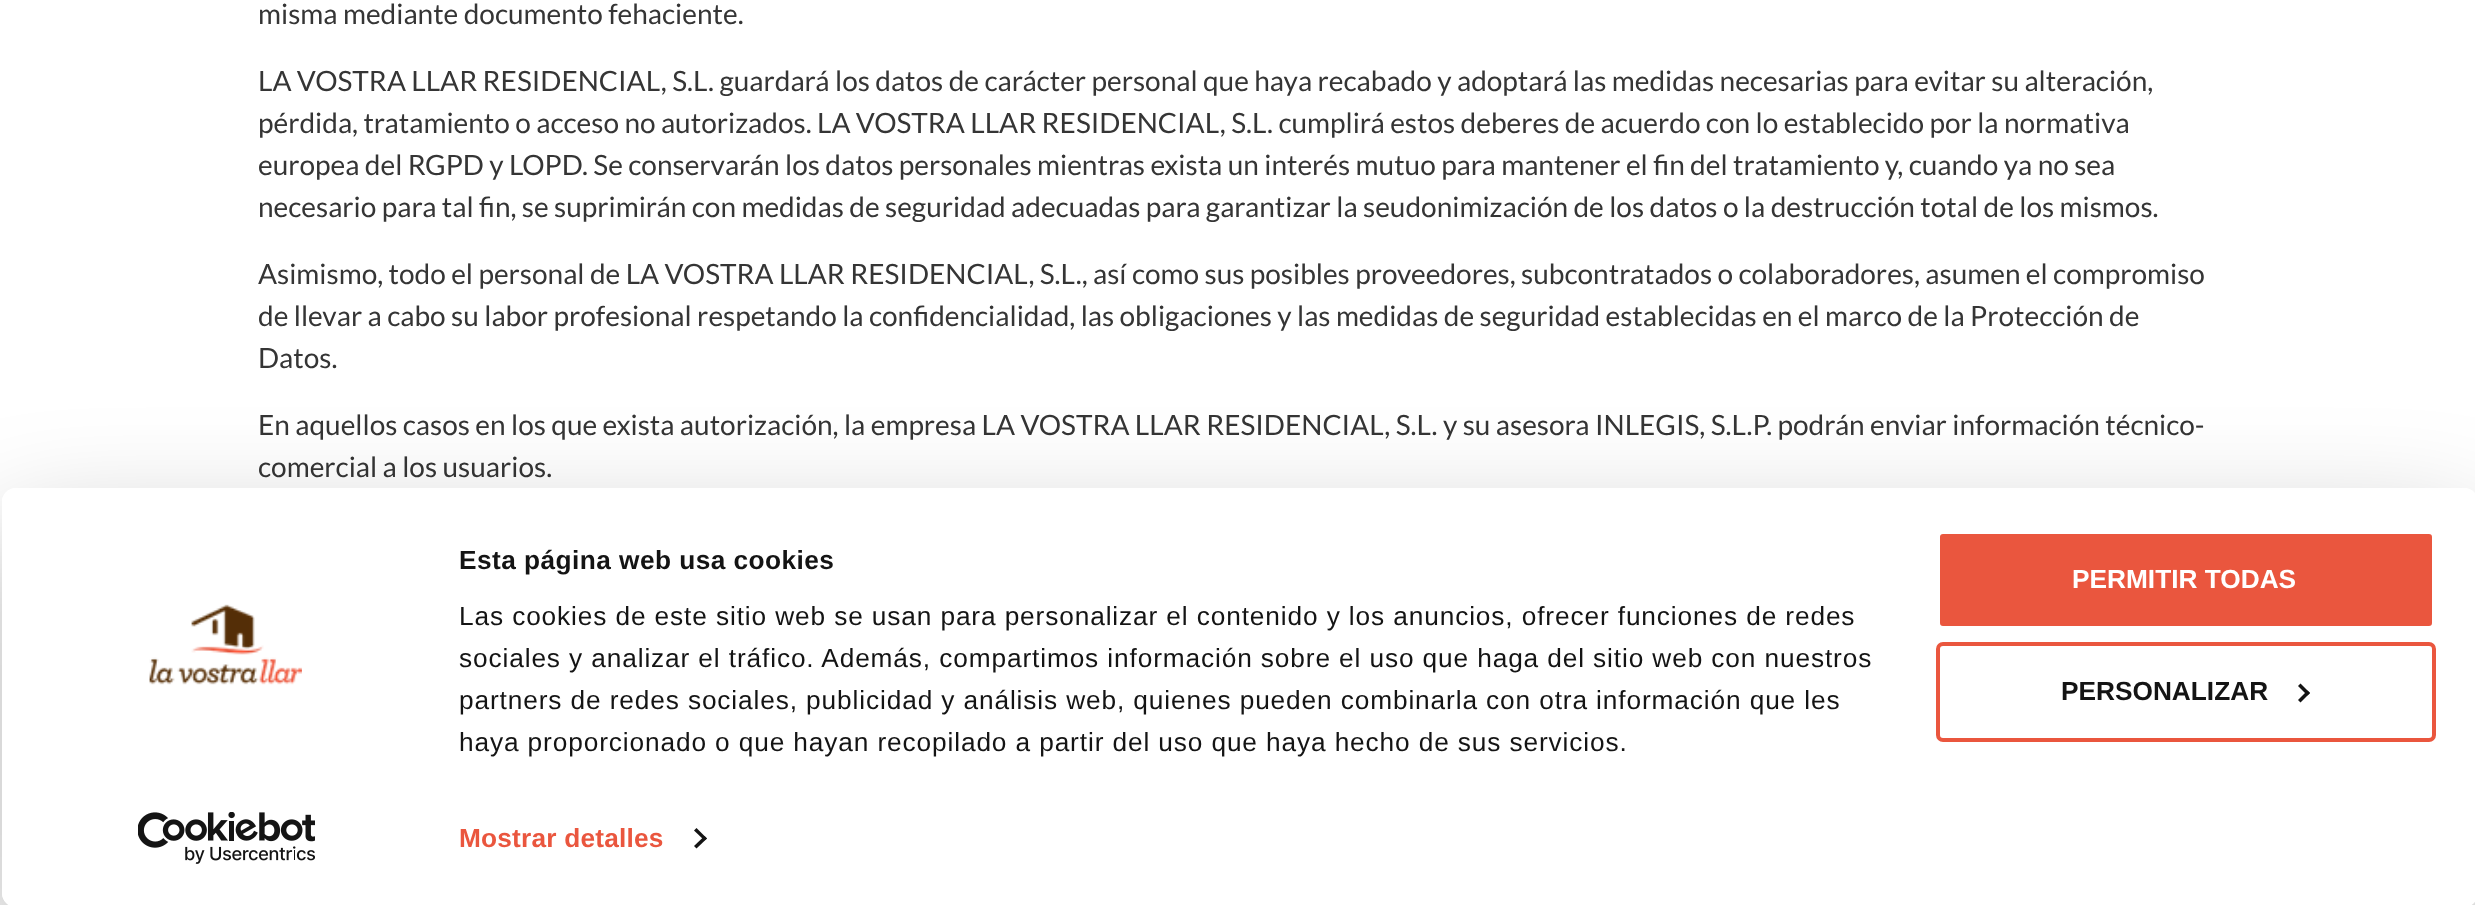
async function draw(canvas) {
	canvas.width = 2475;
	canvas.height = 905;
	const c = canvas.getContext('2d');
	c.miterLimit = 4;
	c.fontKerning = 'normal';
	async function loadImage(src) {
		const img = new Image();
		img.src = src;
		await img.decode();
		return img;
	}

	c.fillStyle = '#fff';
	c.fillRect(0, 0, 2475, 905);
	c.font = '28px Lato';
	c.fillStyle = '#353535';
	for (const [text, x, y] of [
		['misma mediante documento fehaciente.', 258, 24],
		['LA VOSTRA LLAR RESIDENCIAL, S.L. guardará los datos de carácter personal que haya recabado y adoptará las medidas necesarias para evitar su alteración,', 258, 91],
		['pérdida, tratamiento o acceso no autorizados. LA VOSTRA LLAR RESIDENCIAL, S.L. cumplirá estos deberes de acuerdo con lo establecido por la normativa', 258, 133],
		['europea del RGPD y LOPD. Se conservarán los datos personales mientras exista un interés mutuo para mantener el fin del tratamiento y, cuando ya no sea', 258, 175],
		['necesario para tal fin, se suprimirán con medidas de seguridad adecuadas para garantizar la seudonimización de los datos o la destrucción total de los mismos.', 258, 217],
		['Asimismo, todo el personal de LA VOSTRA LLAR RESIDENCIAL, S.L., así como sus posibles proveedores, subcontratados o colaboradores, asumen el compromiso', 258, 284],
		['de llevar a cabo su labor profesional respetando la confidencialidad, las obligaciones y las medidas de seguridad establecidas en el marco de la Protección de', 258, 326],
		['Datos.', 258, 368],
		['En aquellos casos en los que exista autorización, la empresa LA VOSTRA LLAR RESIDENCIAL, S.L. y su asesora INLEGIS, S.L.P. podrán enviar información técnico-', 258, 435],
		['comercial a los usuarios.', 258, 477],
	]) {
		c.fillText(text, x, y);
	}
	c.save();
	c.beginPath();
	c.moveTo(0, 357);
	c.lineTo(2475, 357);
	c.lineTo(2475, 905);
	c.lineTo(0, 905);
	c.closePath();
	c.moveTo(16, 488);
	c.lineTo(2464, 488);
	c.bezierCurveTo(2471.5, 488, 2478, 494.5, 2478, 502);
	c.lineTo(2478, 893);
	c.bezierCurveTo(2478, 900.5, 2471.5, 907, 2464, 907);
	c.lineTo(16, 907);
	c.bezierCurveTo(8.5, 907, 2, 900.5, 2, 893);
	c.lineTo(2, 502);
	c.bezierCurveTo(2, 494.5, 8.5, 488, 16, 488);
	c.closePath();
	c.clip('evenodd');
	c.fillStyle = '#0000004d';
	c.filter = 'blur(61px)';
	c.beginPath();
	c.roundRect(2, 541, 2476, 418, 14);
	c.fill();
	c.filter = 'none';
	c.restore();
	c.fillStyle = '#fff';
	c.beginPath();
	c.roundRect(2, 488, 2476, 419, 14);
	c.fill();
	c.drawImage(await loadImage('img1.png'), 149, 604, 153, 81);
	c.drawImage(await loadImage('img2.png'), 138, 812, 177, 52);
	c.letterSpacing = '0.45px';
	c.font = 'bold 26.25px Liberation Sans';
	c.fillStyle = '#141414';
	c.fillText('Esta página web usa cookies', 459, 569);
	c.letterSpacing = '0.88px';
	c.font = '26.25px Liberation Sans';
	for (const [text, x, y] of [
		['Las cookies de este sitio web se usan para personalizar el contenido y los anuncios, ofrecer funciones de redes', 459, 625],
		['sociales y analizar el tráfico. Además, compartimos información sobre el uso que haga del sitio web con nuestros', 459, 667],
		['partners de redes sociales, publicidad y análisis web, quienes pueden combinarla con otra información que les', 459, 709],
		['haya proporcionado o que hayan recopilado a partir del uso que haya hecho de sus servicios.', 459, 751],
	]) {
		c.fillText(text, x, y);
	}
	c.letterSpacing = '0.2px';
	c.font = 'bold 26.25px Liberation Sans';
	c.fillStyle = '#ea563e';
	c.fillText('Mostrar detalles', 459, 847);
	c.fillStyle = '#141414';
	c.beginPath();
	c.moveTo(696.5, 828);
	c.lineTo(707, 838.5);
	c.lineTo(704.5, 840.5);
	c.lineTo(694, 830.5);
	c.closePath();
	c.fill();
	c.beginPath();
	c.moveTo(704.5, 836);
	c.lineTo(707, 838.5);
	c.lineTo(696.5, 848.5);
	c.lineTo(694, 846);
	c.closePath();
	c.fill();
	c.fillStyle = '#ea563e';
	c.beginPath();
	c.roundRect(1938, 532, 496, 96, 5);
	c.fill();
	c.strokeStyle = '#fff';
	c.lineWidth = 4;
	c.stroke();
	c.letterSpacing = '0px';
	c.fillStyle = '#fff';
	c.fillText('PERMITIR TODAS', 2072, 588);
	c.beginPath();
	c.roundRect(1938, 644, 496, 96, 5);
	c.strokeStyle = '#ea563e';
	c.stroke();
	c.fillStyle = '#141414';
	c.fillText('PERSONALIZAR', 2061, 700);
	c.beginPath();
	c.moveTo(2300.5, 683.5);
	c.lineTo(2310, 693);
	c.lineTo(2307.5, 695.5);
	c.lineTo(2298, 686);
	c.closePath();
	c.fill();
	c.beginPath();
	c.moveTo(2307.5, 690.5);
	c.lineTo(2310, 693);
	c.lineTo(2300.5, 702.5);
	c.lineTo(2298, 700);
	c.closePath();
	c.fill();
}

draw(document.querySelector('canvas'));
